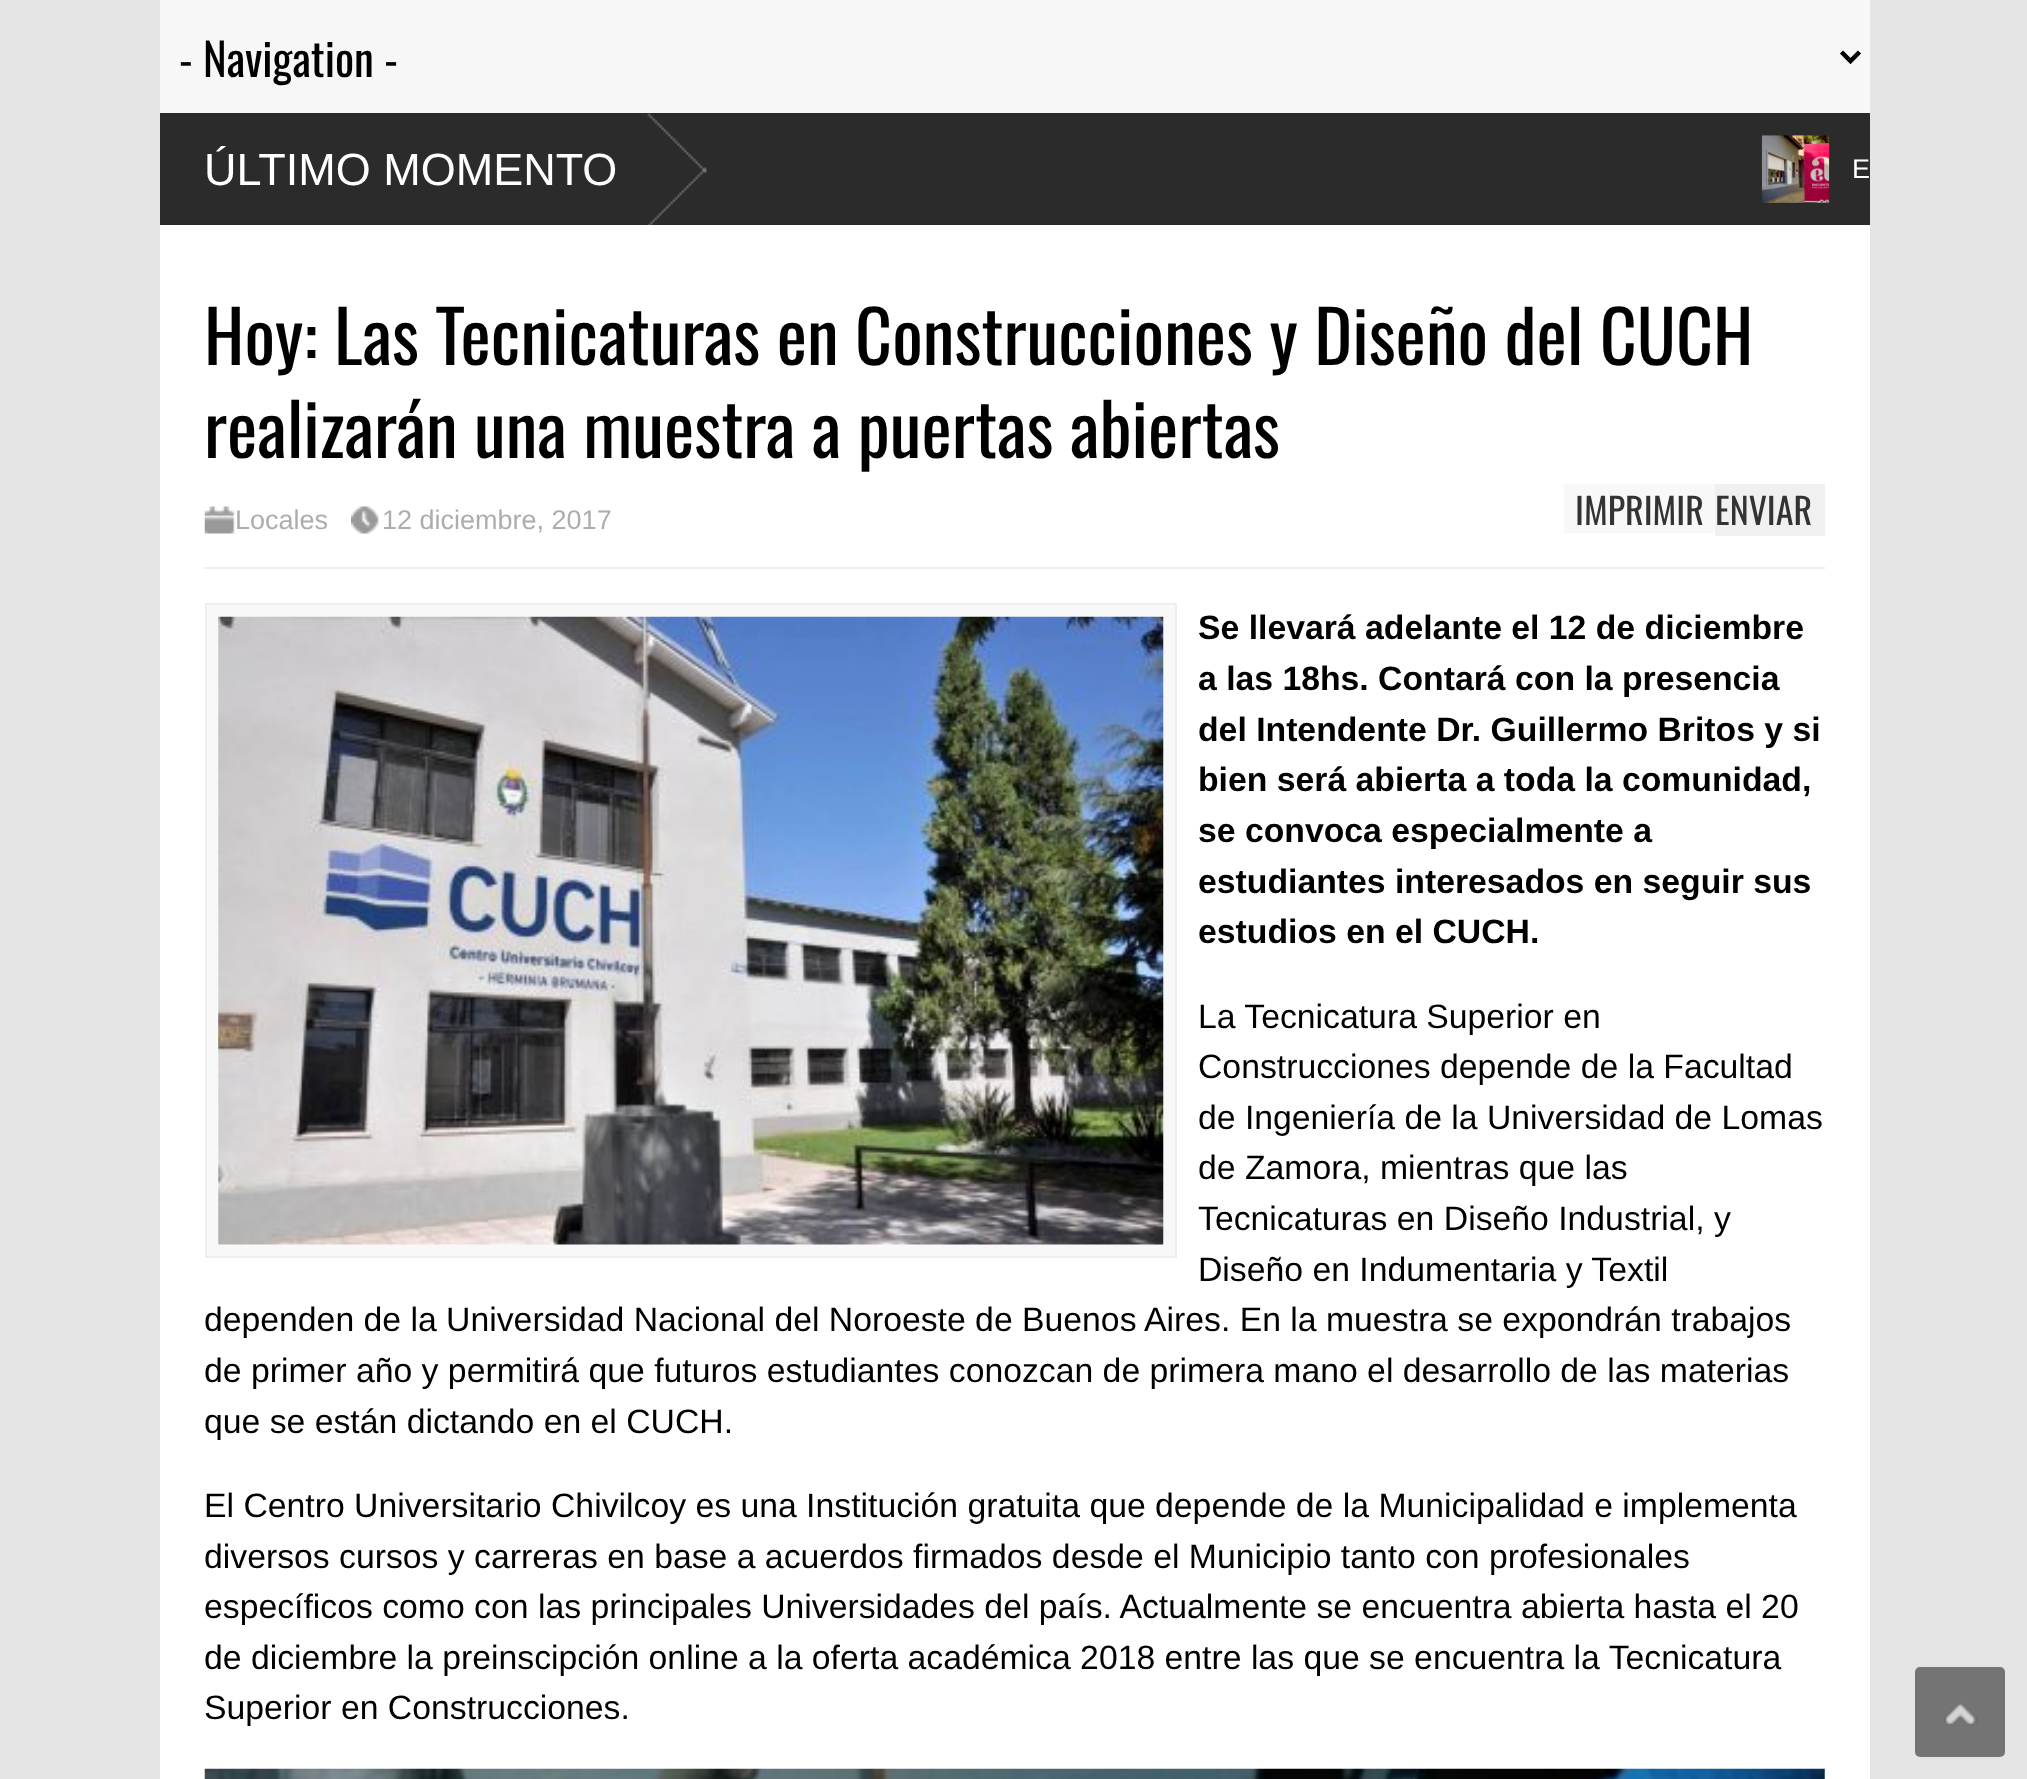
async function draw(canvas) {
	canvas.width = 2027;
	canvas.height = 1779;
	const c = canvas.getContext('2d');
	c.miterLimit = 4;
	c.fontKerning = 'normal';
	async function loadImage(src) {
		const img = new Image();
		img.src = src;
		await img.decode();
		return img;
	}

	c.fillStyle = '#e5e5e5';
	c.fillRect(0, 0, 2027, 1779);
	c.fillStyle = '#fff';
	c.fillRect(160, 225, 1710, 1554);
	c.fillStyle = '#f7f7f7';
	c.fillRect(160, 0, 1710, 113);
	c.beginPath();
	c.moveTo(1841.5, 52);
	c.lineTo(1850.5, 61);
	c.lineTo(1859.5, 52);
	c.strokeStyle = '#000';
	c.lineWidth = 4.5;
	c.stroke();
	c.font = '45px Oswald';
	c.fillStyle = '#000';
	c.fillText('- Navigation -', 179, 77);
	c.fillStyle = '#2b2b2b';
	c.fillRect(160, 113, 1710, 112);
	c.drawImage(await loadImage('img1.png'), 647, 113, 60, 112);
	c.font = '45px Liberation Sans';
	c.fillStyle = '#fff';
	c.fillText('ÚLTIMO MOMENTO', 204, 185);
	c.drawImage(await loadImage('img2.png'), 1761, 135, 69, 68);
	c.font = '27px Liberation Sans';
	c.fillText('E', 1852, 178);
	c.font = '72px Oswald';
	c.fillStyle = '#000';
	c.fillText('Hoy: Las Tecnicaturas en Construcciones y Diseño del CUCH', 204, 365);
	c.fillText('realizarán una muestra a puertas abiertas', 204, 458);
	c.fillStyle = '#eee';
	c.fillRect(205, 567, 1620, 2);
	c.drawImage(await loadImage('img3.png'), 204, 506, 31, 28);
	c.font = '27px Liberation Sans';
	c.fillStyle = '#adadad';
	c.fillText('Locales', 235, 529);
	c.drawImage(await loadImage('img4.png'), 351, 506, 28, 28);
	c.fillText('12 diciembre, 2017', 382, 529);
	c.fillStyle = '#f8f8f8';
	c.fillRect(1564, 484, 151, 49);
	c.font = '36px Oswald';
	c.fillStyle = '#333';
	c.fillText('IMPRIMIR', 1575, 525);
	c.fillStyle = '#f0f0f0';
	c.fillRect(1715, 484, 110, 52);
	c.fillStyle = '#333';
	c.fillText('ENVIAR', 1715, 525);
	c.fillStyle = '#f8f8f8';
	c.beginPath();
	c.rect(206, 604, 970, 653);
	c.fill();
	c.strokeStyle = '#eee';
	c.lineWidth = 2;
	c.stroke();
	c.drawImage(await loadImage('img5.png'), 218, 616, 946, 629);
	c.font = 'bold 33.75px Liberation Sans';
	c.fillStyle = '#000';
	for (const [text, x, y] of [
		['Se llevará adelante el 12 de diciembre', 1198, 639],
		['a las 18hs. Contará con la presencia', 1198, 690],
		['del Intendente Dr. Guillermo Britos y si', 1198, 741],
		['bien será abierta a toda la comunidad,', 1198, 791],
		['se convoca especialmente a', 1198, 842],
		['estudiantes interesados en seguir sus', 1198, 893],
		['estudios en el CUCH.', 1198, 943],
	]) {
		c.fillText(text, x, y);
	}
	c.font = '33.75px Liberation Sans';
	for (const [text, x, y] of [
		['La Tecnicatura Superior en', 1198, 1028],
		['Construcciones depende de la Facultad', 1198, 1078],
		['de Ingeniería de la Universidad de Lomas', 1198, 1129],
		['de Zamora, mientras que las', 1198, 1179],
		['Tecnicaturas en Diseño Industrial, y', 1198, 1230],
		['Diseño en Indumentaria y Textil', 1198, 1281],
		['dependen de la Universidad Nacional del Noroeste de Buenos Aires. En la muestra se expondrán trabajos', 204, 1331],
		['de primer año y permitirá que futuros estudiantes conozcan de primera mano el desarrollo de las materias', 204, 1382],
		['que se están dictando en el CUCH.', 204, 1433],
		['El Centro Universitario Chivilcoy es una Institución gratuita que depende de la Municipalidad e implementa', 204, 1517],
		['diversos cursos y carreras en base a acuerdos firmados desde el Municipio tanto con profesionales', 204, 1568],
		['específicos como con las principales Universidades del país. Actualmente se encuentra abierta hasta el 20', 204, 1618],
		['de diciembre la preinscipción online a la oferta académica 2018 entre las que se encuentra la Tecnicatura', 204, 1669],
		['Superior en Construcciones.', 204, 1719],
	]) {
		c.fillText(text, x, y);
	}
	c.drawImage(await loadImage('img6.png'), 204, 1768, 1621, 11);
	c.fillStyle = '#747474';
	c.beginPath();
	c.roundRect(1915, 1667, 90, 90, 5);
	c.fill();
	c.drawImage(await loadImage('img7.png'), 1944, 1703, 34, 23);
}

draw(document.querySelector('canvas'));
